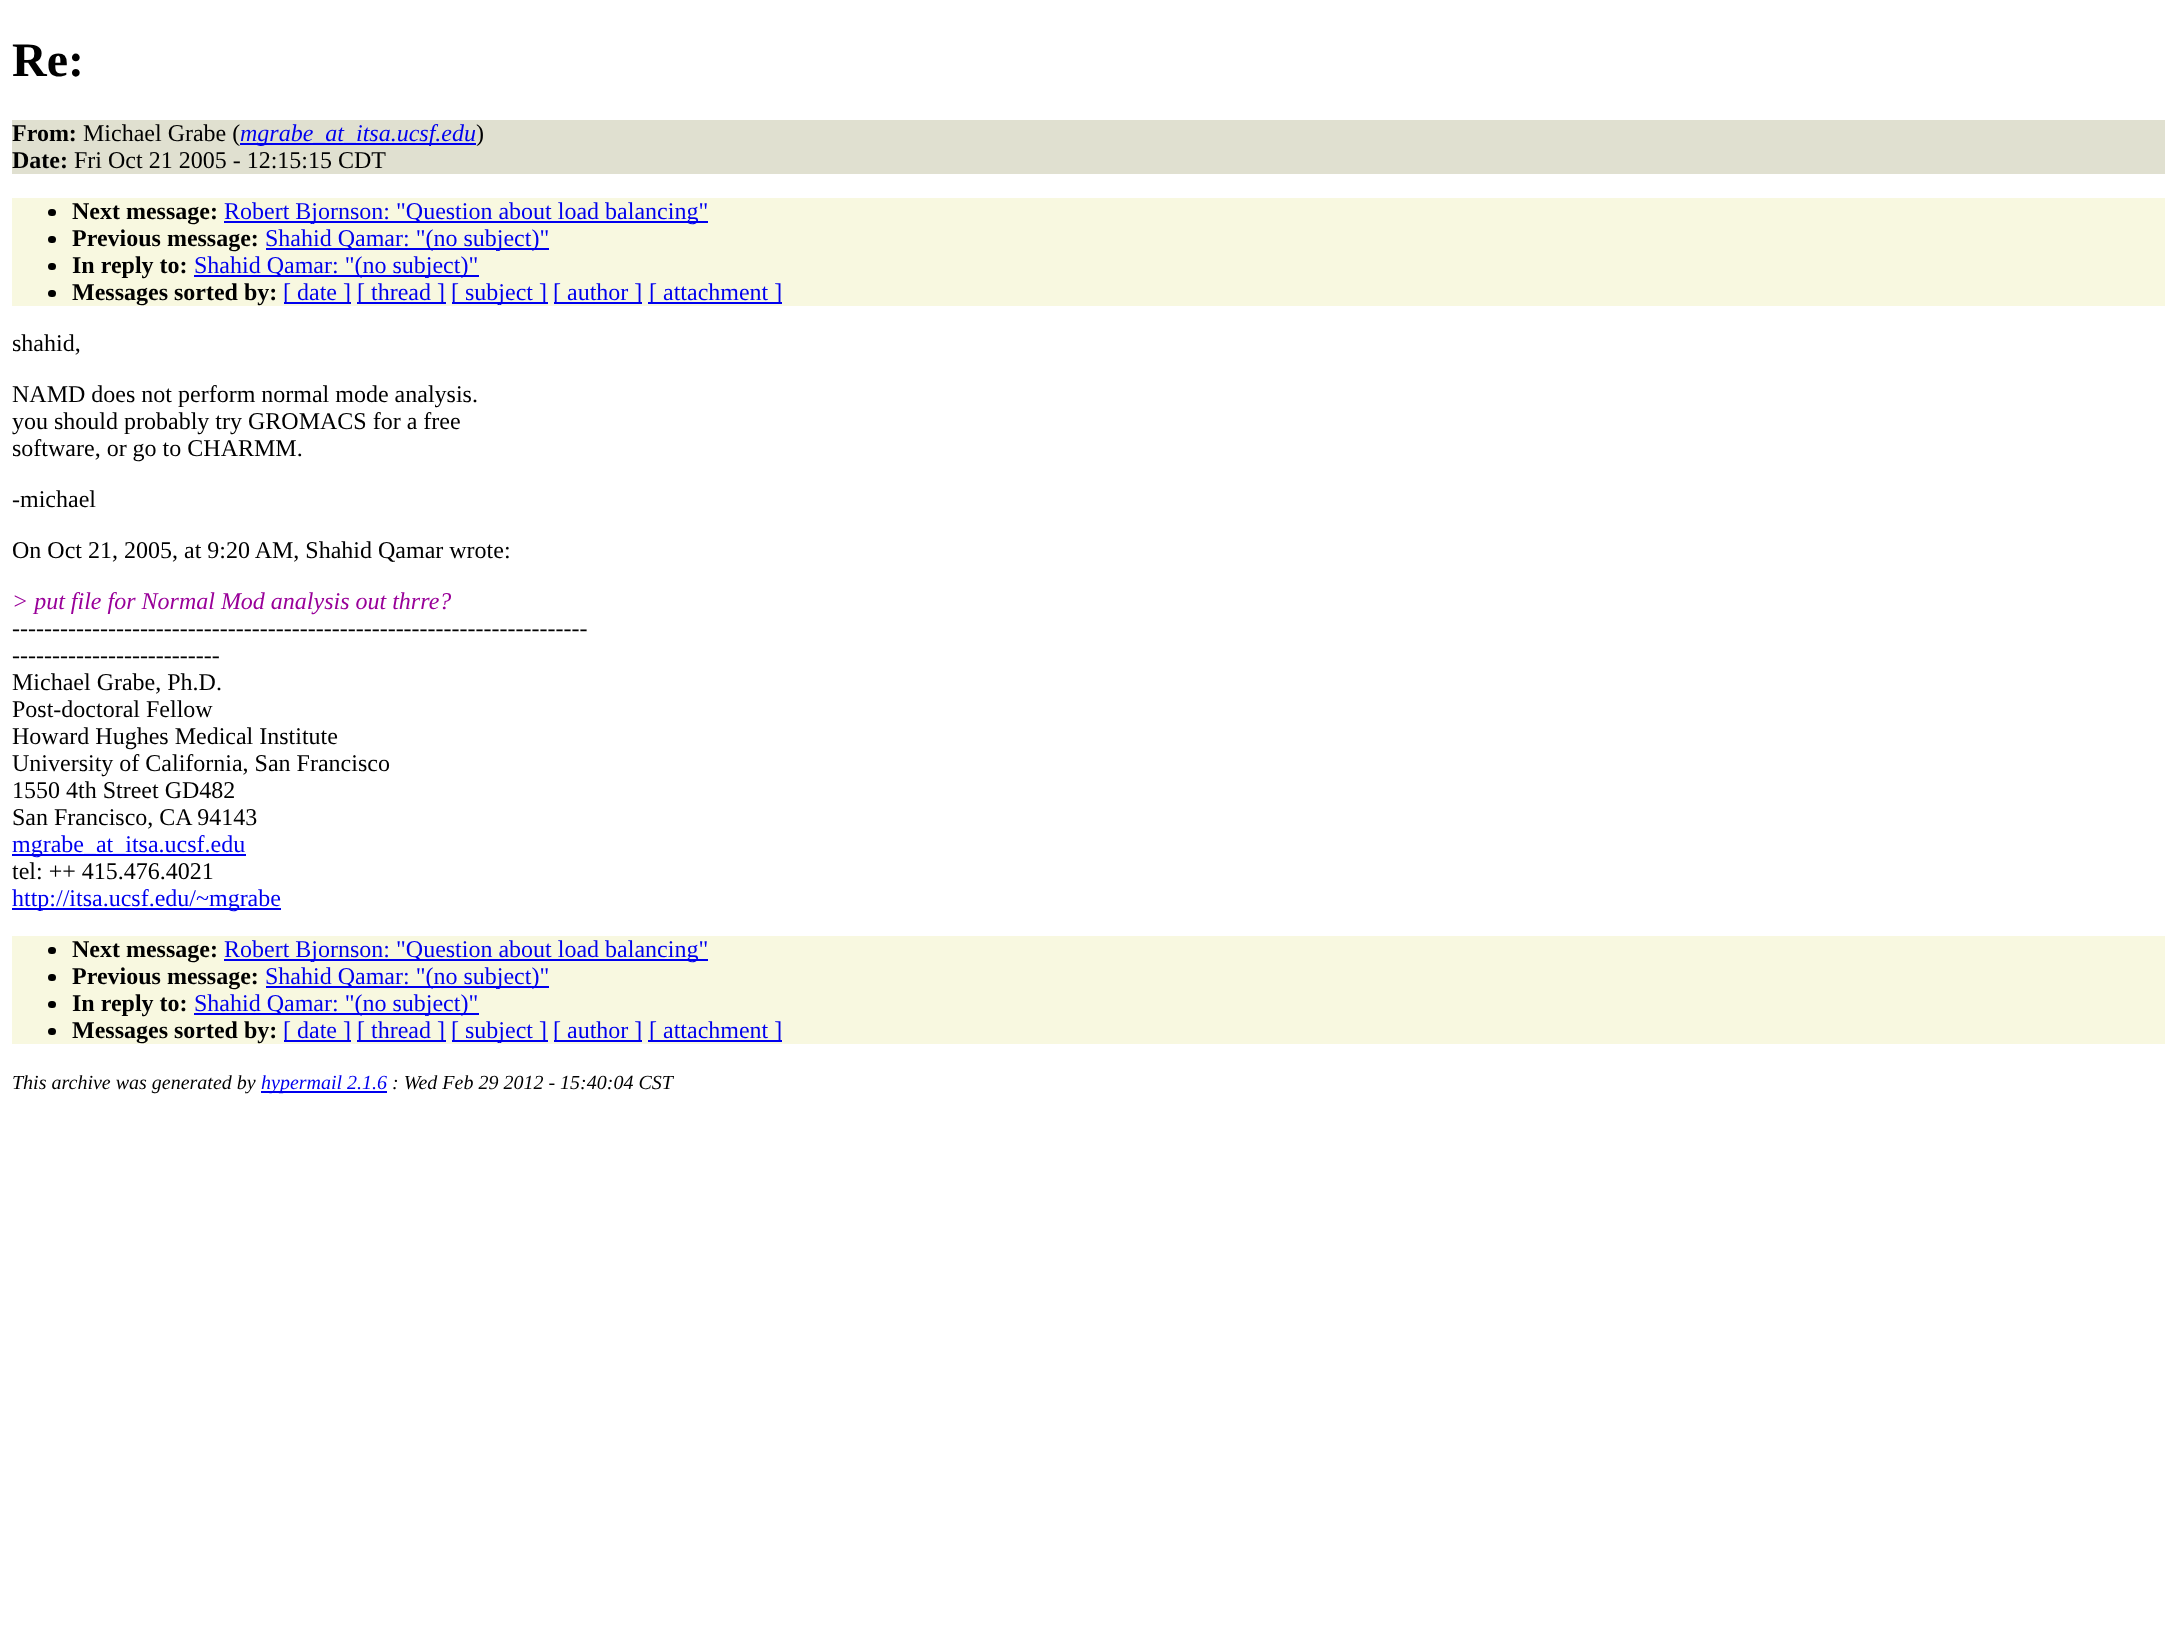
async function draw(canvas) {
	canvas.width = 2176;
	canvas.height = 1634;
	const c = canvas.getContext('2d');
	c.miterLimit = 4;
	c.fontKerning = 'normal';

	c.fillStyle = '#fff';
	c.fillRect(0, 0, 2176, 1634);
	c.font = 'bold 48px Liberation Serif';
	c.fillStyle = '#000';
	c.fillText('Re:', 12, 76);
	c.fillStyle = '#e0e0d0';
	c.fillRect(12, 120, 2153, 54);
	c.font = 'bold 24px Liberation Serif';
	c.fillStyle = '#000';
	c.fillText('From:', 12, 141);
	c.font = '24px Liberation Serif';
	c.fillText('Michael Grabe (', 83, 141);
	c.fillStyle = '#00e';
	c.fillRect(240, 143, 236, 2);
	c.font = 'italic 24px Liberation Serif';
	c.fillText('mgrabe_at_itsa.ucsf.edu', 240, 141);
	c.font = '24px Liberation Serif';
	c.fillStyle = '#000';
	c.fillText(')', 476, 141);
	c.font = 'bold 24px Liberation Serif';
	c.fillText('Date:', 12, 168);
	c.font = '24px Liberation Serif';
	c.fillText('Fri Oct 21 2005 - 12:15:15 CDT', 74, 168);
	c.fillStyle = '#f8f8e0';
	c.fillRect(12, 198, 2153, 108);
	c.fillStyle = '#000';
	c.beginPath();
	c.roundRect(48, 209, 8, 7, 3.5);
	c.fill();
	c.font = 'bold 24px Liberation Serif';
	c.fillText('Next message:', 72, 219);
	c.fillStyle = '#00e';
	c.fillRect(224, 221, 484, 2);
	c.font = '24px Liberation Serif';
	c.fillText('Robert Bjornson: "Question about load balancing"', 224, 219);
	c.fillStyle = '#000';
	c.beginPath();
	c.roundRect(48, 236, 8, 7, 3.5);
	c.fill();
	c.font = 'bold 24px Liberation Serif';
	c.fillText('Previous message:', 72, 246);
	c.fillStyle = '#00e';
	c.fillRect(266, 248, 283, 2);
	c.font = '24px Liberation Serif';
	c.fillText('Shahid Qamar: "(no subject)"', 265, 246);
	c.fillStyle = '#000';
	c.beginPath();
	c.roundRect(48, 263, 8, 7, 3.5);
	c.fill();
	c.font = 'bold 24px Liberation Serif';
	c.fillText('In reply to:', 72, 273);
	c.fillStyle = '#00e';
	c.fillRect(194, 275, 285, 2);
	c.font = '24px Liberation Serif';
	c.fillText('Shahid Qamar: "(no subject)"', 194, 273);
	c.fillStyle = '#000';
	c.beginPath();
	c.roundRect(48, 290, 8, 7, 3.5);
	c.fill();
	c.font = 'bold 24px Liberation Serif';
	c.fillText('Messages sorted by:', 72, 300);
	c.fillStyle = '#00e';
	c.fillRect(284, 302, 67, 2);
	c.font = '24px Liberation Serif';
	c.fillText('[ date ]', 283, 300);
	c.fillRect(357, 302, 89, 2);
	c.fillText('[ thread ]', 357, 300);
	c.fillRect(452, 302, 96, 2);
	c.fillText('[ subject ]', 451, 300);
	c.fillRect(554, 302, 88, 2);
	c.fillText('[ author ]', 553, 300);
	c.fillRect(648, 302, 134, 2);
	c.fillText('[ attachment ]', 649, 300);
	c.fillStyle = '#000';
	for (const [text, x, y] of [
		['shahid,', 12, 351],
		['NAMD does not perform normal mode analysis.', 12, 402],
		['you should probably try GROMACS for a free', 12, 429],
		['software, or go to CHARMM.', 12, 456],
		['-michael', 12, 507],
		['On Oct 21, 2005, at 9:20 AM, Shahid Qamar wrote:', 12, 558],
	]) {
		c.fillText(text, x, y);
	}
	c.font = 'italic 24px Liberation Serif';
	c.fillStyle = '#909';
	c.fillText('> put file for Normal Mod analysis out thrre?', 12, 609);
	c.font = '24px Liberation Serif';
	c.fillStyle = '#000';
	for (const [text, x, y] of [
		['------------------------------------------------------------------------', 12, 636],
		['--------------------------', 12, 663],
		['Michael Grabe, Ph.D.', 12, 690],
		['Post-doctoral Fellow', 12, 717],
		['Howard Hughes Medical Institute', 12, 744],
		['University of California, San Francisco', 12, 771],
		['1550 4th Street GD482', 12, 798],
		['San Francisco, CA 94143', 12, 825],
	]) {
		c.fillText(text, x, y);
	}
	c.fillStyle = '#00e';
	c.fillRect(12, 854, 234, 2);
	c.fillText('mgrabe_at_itsa.ucsf.edu', 12, 852);
	c.fillStyle = '#000';
	c.fillText('tel: ++ 415.476.4021', 12, 879);
	c.fillStyle = '#00e';
	c.fillRect(12, 908, 269, 2);
	c.fillText('http://itsa.ucsf.edu/~mgrabe', 12, 906);
	c.fillStyle = '#f8f8e0';
	c.fillRect(12, 936, 2153, 108);
	c.fillStyle = '#000';
	c.beginPath();
	c.roundRect(48, 947, 8, 7, 3.5);
	c.fill();
	c.font = 'bold 24px Liberation Serif';
	c.fillText('Next message:', 72, 957);
	c.fillStyle = '#00e';
	c.fillRect(224, 959, 484, 2);
	c.font = '24px Liberation Serif';
	c.fillText('Robert Bjornson: "Question about load balancing"', 224, 957);
	c.fillStyle = '#000';
	c.beginPath();
	c.roundRect(48, 974, 8, 7, 3.5);
	c.fill();
	c.font = 'bold 24px Liberation Serif';
	c.fillText('Previous message:', 72, 984);
	c.fillStyle = '#00e';
	c.fillRect(266, 986, 283, 2);
	c.font = '24px Liberation Serif';
	c.fillText('Shahid Qamar: "(no subject)"', 265, 984);
	c.fillStyle = '#000';
	c.beginPath();
	c.roundRect(48, 1001, 8, 7, 3.5);
	c.fill();
	c.font = 'bold 24px Liberation Serif';
	c.fillText('In reply to:', 72, 1011);
	c.fillStyle = '#00e';
	c.fillRect(194, 1013, 285, 2);
	c.font = '24px Liberation Serif';
	c.fillText('Shahid Qamar: "(no subject)"', 194, 1011);
	c.fillStyle = '#000';
	c.beginPath();
	c.roundRect(48, 1028, 8, 7, 3.5);
	c.fill();
	c.font = 'bold 24px Liberation Serif';
	c.fillText('Messages sorted by:', 72, 1038);
	c.fillStyle = '#00e';
	c.fillRect(284, 1040, 67, 2);
	c.font = '24px Liberation Serif';
	c.fillText('[ date ]', 283, 1038);
	c.fillRect(357, 1040, 89, 2);
	c.fillText('[ thread ]', 357, 1038);
	c.fillRect(452, 1040, 96, 2);
	c.fillText('[ subject ]', 451, 1038);
	c.fillRect(554, 1040, 88, 2);
	c.fillText('[ author ]', 553, 1038);
	c.fillRect(648, 1040, 134, 2);
	c.fillText('[ attachment ]', 649, 1038);
	c.font = 'italic 20px Liberation Serif';
	c.fillStyle = '#000';
	c.fillText('This archive was generated by', 12, 1089);
	c.fillStyle = '#00e';
	c.fillRect(261, 1091, 126, 2);
	c.fillText('hypermail 2.1.6', 261, 1089);
	c.fillStyle = '#000';
	c.fillText(': Wed Feb 29 2012 - 15:40:04 CST', 392, 1089);
}

draw(document.querySelector('canvas'));
